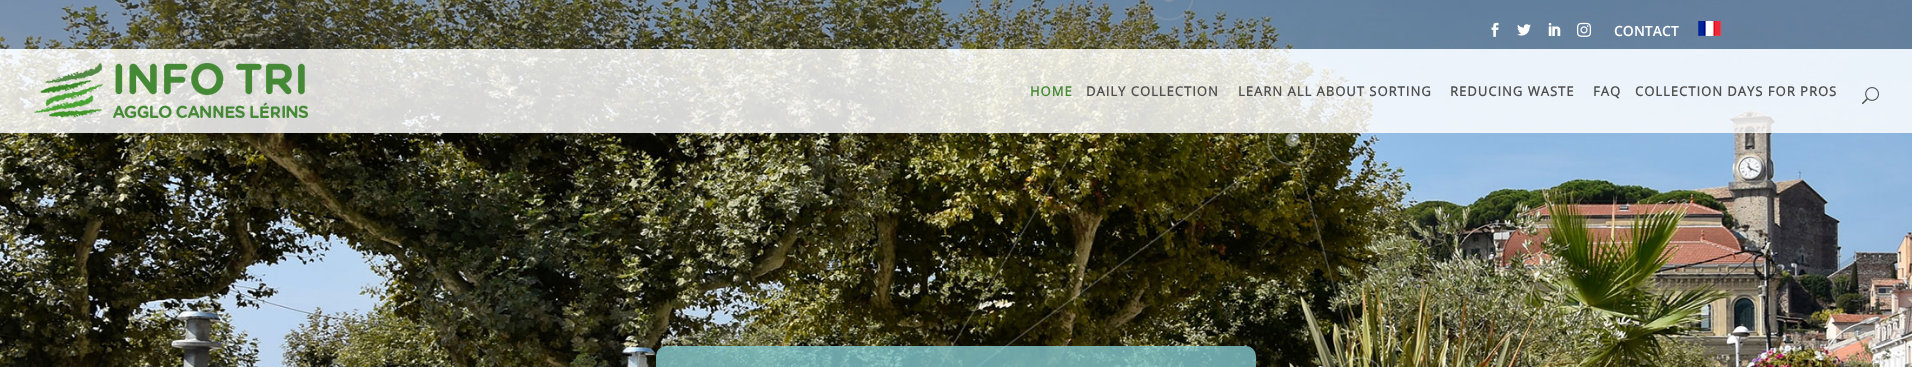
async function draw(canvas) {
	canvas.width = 1912;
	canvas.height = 367;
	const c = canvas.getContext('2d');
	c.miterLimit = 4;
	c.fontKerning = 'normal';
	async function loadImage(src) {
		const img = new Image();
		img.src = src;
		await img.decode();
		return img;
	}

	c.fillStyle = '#fff';
	c.fillRect(0, 0, 1912, 367);
	c.drawImage(await loadImage('img1.png'), 0, 0, 1912, 367);
	c.fillStyle = '#88cdd4c9';
	c.beginPath();
	c.roundRect(656, 346, 600, 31, 10);
	c.fill();
	c.fillStyle = '#33333361';
	c.fillRect(0, 0, 1912, 49);
	c.drawImage(await loadImage('img2.png'), 1491, 22, 8, 15);
	c.drawImage(await loadImage('img3.png'), 1517, 24, 14, 12);
	c.drawImage(await loadImage('img4.png'), 1548, 22, 13, 14);
	c.drawImage(await loadImage('img5.png'), 1577, 22, 14, 15);
	c.font = '600 14px Open Sans';
	c.fillStyle = '#fff';
	c.fillText('CONTACT', 1614, 36);
	c.drawImage(await loadImage('img6.png'), 1698, 21, 23, 15);
	c.fillStyle = '#ffffffd6';
	c.fillRect(0, 49, 1912, 84);
	c.drawImage(await loadImage('img7.png'), 34, 63, 274, 55);
	c.letterSpacing = '1px';
	c.font = 'bold 13px Open Sans';
	c.fillStyle = '#458835';
	c.fillText('HOME', 1030, 96);
	c.fillStyle = '#4f4f4f';
	for (const [text, x, y] of [
		['DAILY COLLECTION', 1086, 96],
		['LEARN ALL ABOUT SORTING', 1238, 96],
		['REDUCING WASTE', 1450, 96],
		['FAQ', 1593, 96],
		['COLLECTION DAYS FOR PROS', 1635, 96],
	]) {
		c.fillText(text, x, y);
	}
	c.drawImage(await loadImage('img8.png'), 1862, 87, 17, 18);
}

draw(document.querySelector('canvas'));
